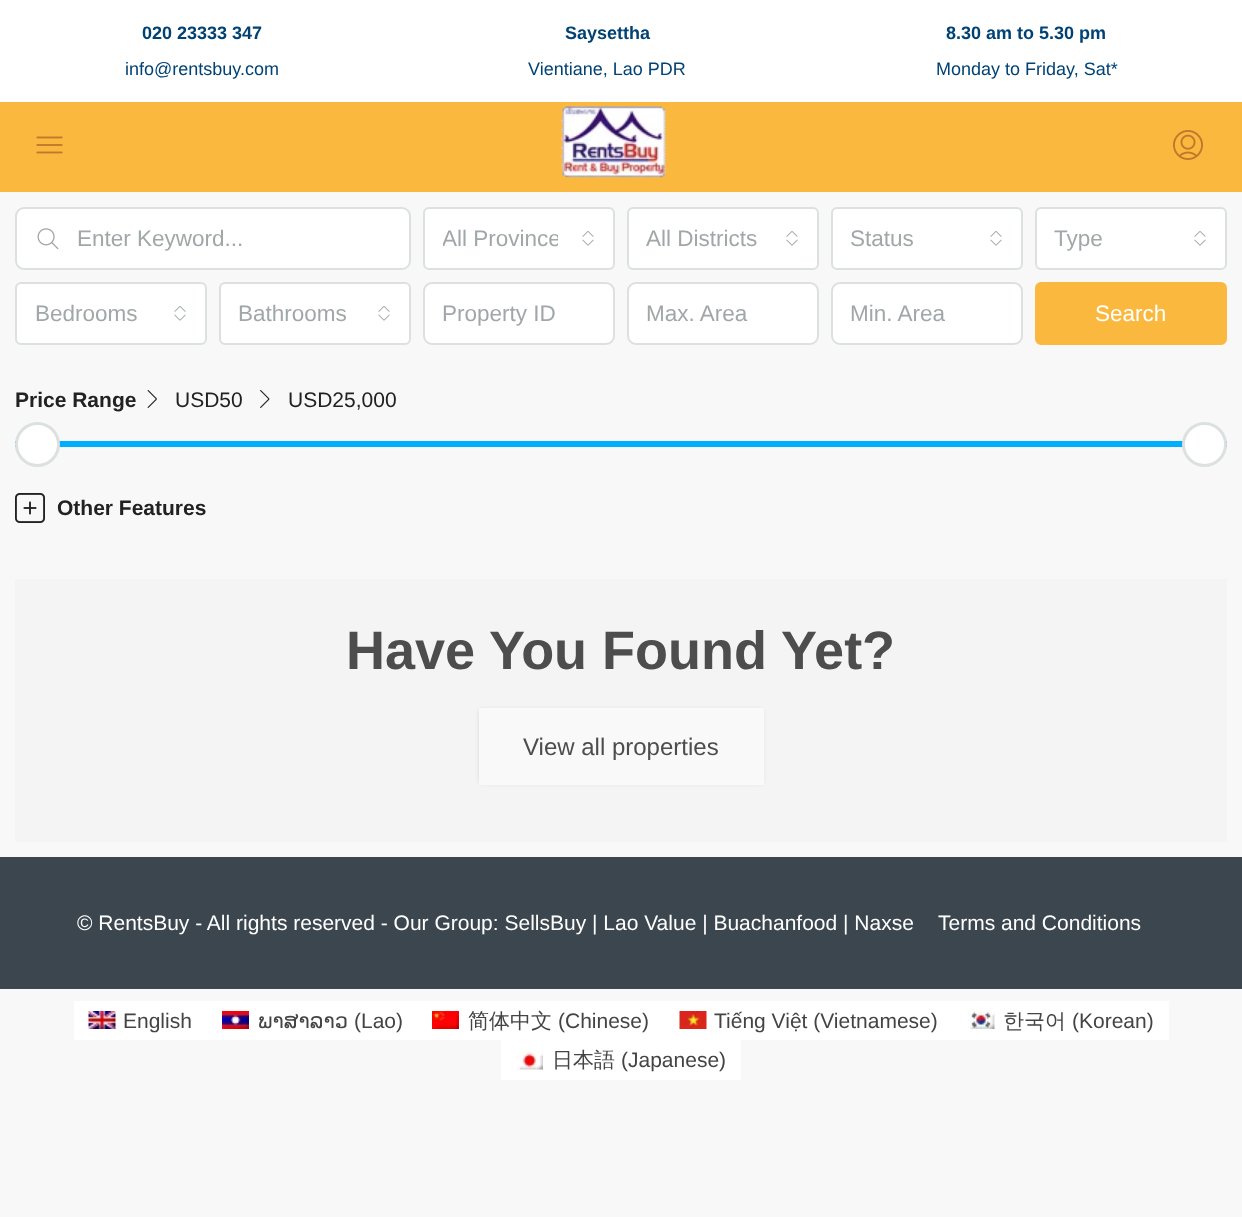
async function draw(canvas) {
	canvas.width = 1242;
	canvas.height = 1217;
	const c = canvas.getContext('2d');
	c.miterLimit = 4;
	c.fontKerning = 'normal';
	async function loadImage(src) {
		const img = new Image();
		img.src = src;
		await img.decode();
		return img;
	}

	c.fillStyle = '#f8f8f8';
	c.fillRect(0, 0, 1242, 1217);
	c.fillStyle = '#fff';
	c.fillRect(0, 0, 1242, 102);
	c.font = 'bold 18px Liberation Sans';
	c.fillStyle = '#004274';
	c.fillText('020 23333 347', 142, 39);
	c.font = '18px Liberation Sans';
	c.fillText('info@rentsbuy.com', 125, 75);
	c.font = 'bold 18px Liberation Sans';
	c.fillText('Saysettha', 565, 39);
	c.font = '18px Liberation Sans';
	c.fillText('Vientiane, Lao PDR', 528, 75);
	c.font = 'bold 18px Liberation Sans';
	c.fillText('8.30 am to 5.30 pm', 946, 39);
	c.font = '18px Liberation Sans';
	c.fillText('Monday to Friday, Sat*', 936, 75);
	c.fillStyle = '#fab93e';
	c.fillRect(0, 102, 1242, 90);
	c.drawImage(await loadImage('img1.png'), 36, 136, 27, 18);
	c.drawImage(await loadImage('img2.png'), 561, 106, 105, 72);
	c.drawImage(await loadImage('img3.png'), 1173, 130, 30, 30);
	c.fillStyle = '#fff';
	c.beginPath();
	c.roundRect(16, 208, 394, 61, 8);
	c.fill();
	c.strokeStyle = '#dce0e0';
	c.lineWidth = 2;
	c.stroke();
	c.drawImage(await loadImage('img4.png'), 37, 228, 22, 22);
	c.font = '22.5px Liberation Sans';
	c.fillStyle = '#a1a7a8';
	c.fillText('Enter Keyword...', 77, 246);
	c.fillStyle = '#fff';
	c.beginPath();
	c.roundRect(424, 208, 190, 61, 5);
	c.fill();
	c.stroke();
	c.save();
	c.beginPath();
	c.rect(443, 209, 115, 60);
	c.clip();
	c.fillStyle = '#a1a7a8';
	c.fillText('All Province', 442, 246);
	c.restore();
	c.drawImage(await loadImage('img5.png'), 582, 231, 12, 15);
	c.beginPath();
	c.roundRect(628, 208, 190, 61, 5);
	c.fill();
	c.stroke();
	c.fillStyle = '#a1a7a8';
	c.fillText('All Districts', 646, 246);
	c.drawImage(await loadImage('img5.png'), 786, 231, 12, 15);
	c.fillStyle = '#fff';
	c.beginPath();
	c.roundRect(832, 208, 190, 61, 5);
	c.fill();
	c.stroke();
	c.fillStyle = '#a1a7a8';
	c.fillText('Status', 850, 246);
	c.drawImage(await loadImage('img5.png'), 990, 231, 12, 15);
	c.fillStyle = '#fff';
	c.beginPath();
	c.roundRect(1036, 208, 190, 61, 5);
	c.fill();
	c.stroke();
	c.fillStyle = '#a1a7a8';
	c.fillText('Type', 1054, 246);
	c.drawImage(await loadImage('img5.png'), 1194, 231, 12, 15);
	c.fillStyle = '#fff';
	c.beginPath();
	c.roundRect(16, 283, 190, 61, 5);
	c.fill();
	c.stroke();
	c.fillStyle = '#a1a7a8';
	c.fillText('Bedrooms', 35, 321);
	c.drawImage(await loadImage('img5.png'), 174, 306, 12, 15);
	c.fillStyle = '#fff';
	c.beginPath();
	c.roundRect(220, 283, 190, 61, 5);
	c.fill();
	c.stroke();
	c.fillStyle = '#a1a7a8';
	c.fillText('Bathrooms', 238, 321);
	c.drawImage(await loadImage('img5.png'), 378, 306, 12, 15);
	c.fillStyle = '#fff';
	c.beginPath();
	c.roundRect(424, 283, 190, 61, 8);
	c.fill();
	c.stroke();
	c.fillStyle = '#a1a7a8';
	c.fillText('Property ID', 442, 321);
	c.fillStyle = '#fff';
	c.beginPath();
	c.roundRect(628, 283, 190, 61, 8);
	c.fill();
	c.stroke();
	c.fillStyle = '#a1a7a8';
	c.fillText('Max. Area', 646, 321);
	c.fillStyle = '#fff';
	c.beginPath();
	c.roundRect(832, 283, 190, 61, 8);
	c.fill();
	c.stroke();
	c.fillStyle = '#a1a7a8';
	c.fillText('Min. Area', 850, 321);
	c.fillStyle = '#fab93e';
	c.beginPath();
	c.roundRect(1036, 283, 190, 61, 5);
	c.fill();
	c.strokeStyle = '#fab93e';
	c.stroke();
	c.fillStyle = '#fff';
	c.fillText('Search', 1095, 321);
	c.font = 'bold 21px Liberation Sans';
	c.fillStyle = '#222';
	c.fillText('Price Range', 15, 407);
	c.drawImage(await loadImage('img6.png'), 147, 390, 10, 18);
	c.font = '21px Liberation Sans';
	c.fillText('USD50', 175, 407);
	c.drawImage(await loadImage('img7.png'), 260, 390, 10, 18);
	c.fillText('USD25,000', 288, 407);
	c.fillStyle = '#00aeff';
	c.fillRect(15, 441, 1212, 6);
	c.fillStyle = '#fff';
	c.beginPath();
	c.arc(1204.5, 444.5, 21, 0, 2 * Math.PI);
	c.fill();
	c.strokeStyle = '#dce0e0';
	c.lineWidth = 3;
	c.stroke();
	c.beginPath();
	c.arc(37.5, 444.5, 21, 0, 2 * Math.PI);
	c.fill();
	c.stroke();
	c.drawImage(await loadImage('img8.png'), 15, 493, 30, 30);
	c.font = 'bold 21px Liberation Sans';
	c.fillStyle = '#222';
	c.fillText('Other Features', 57, 515);
	c.fillStyle = '#f4f4f4';
	c.fillRect(15, 579, 1212, 263);
	c.font = 'bold 54px Liberation Sans';
	c.fillStyle = '#4d4d4d';
	c.fillText('Have You Found Yet?', 346, 669);
	c.fillStyle = '#00000033';
	c.filter = 'blur(2px)';
	c.beginPath();
	c.rect(480, 710, 282, 73);
	c.fill();
	c.filter = 'none';
	c.fillStyle = '#f9f9f9';
	c.fillRect(479, 708, 285, 77);
	c.font = '24px Liberation Sans';
	c.fillStyle = '#4d4d4d';
	c.fillText('View all properties', 523, 755);
	c.fillStyle = '#3c464f';
	c.fillRect(0, 857, 1242, 132);
	c.font = '21px Liberation Sans';
	c.fillStyle = '#fff';
	c.fillText('© RentsBuy - All rights reserved - Our Group: SellsBuy | Lao Value | Buachanfood | Naxse', 77, 930);
	c.fillText('Terms and Conditions', 938, 930);
	c.fillRect(74, 1001, 1095, 39);
	c.drawImage(await loadImage('img9.png'), 88, 1011, 28, 18);
	c.fillStyle = '#444';
	c.fillText('English', 123, 1028);
	c.drawImage(await loadImage('img10.png'), 222, 1011, 27, 18);
	c.font = '21px DejaVu Sans';
	c.fillText('ພາສາລາວ', 258, 1028);
	c.font = '21px Liberation Sans';
	c.fillText('(Lao)', 354, 1028);
	c.drawImage(await loadImage('img11.png'), 432, 1011, 27, 18);
	c.font = '500 21px WenQuanYi Zen Hei';
	c.fillText('简体中文', 468, 1028);
	c.font = '21px Liberation Sans';
	c.fillText('(Chinese)', 558, 1028);
	c.drawImage(await loadImage('img12.png'), 679, 1011, 28, 18);
	c.fillText('Tiếng Việt (Vietnamese)', 714, 1028);
	c.drawImage(await loadImage('img13.png'), 967, 1011, 28, 18);
	c.font = '500 21px WenQuanYi Zen Hei';
	c.fillText('한국어', 1003, 1028);
	c.font = '21px Liberation Sans';
	c.fillText('(Korean)', 1072, 1028);
	c.fillStyle = '#fff';
	c.fillRect(501, 1040, 240, 40);
	c.drawImage(await loadImage('img14.png'), 516, 1051, 27, 19);
	c.font = '500 21px WenQuanYi Zen Hei';
	c.fillStyle = '#444';
	c.fillText('日本語', 552, 1067);
	c.font = '21px Liberation Sans';
	c.fillText('(Japanese)', 621, 1067);
}

draw(document.querySelector('canvas'));
